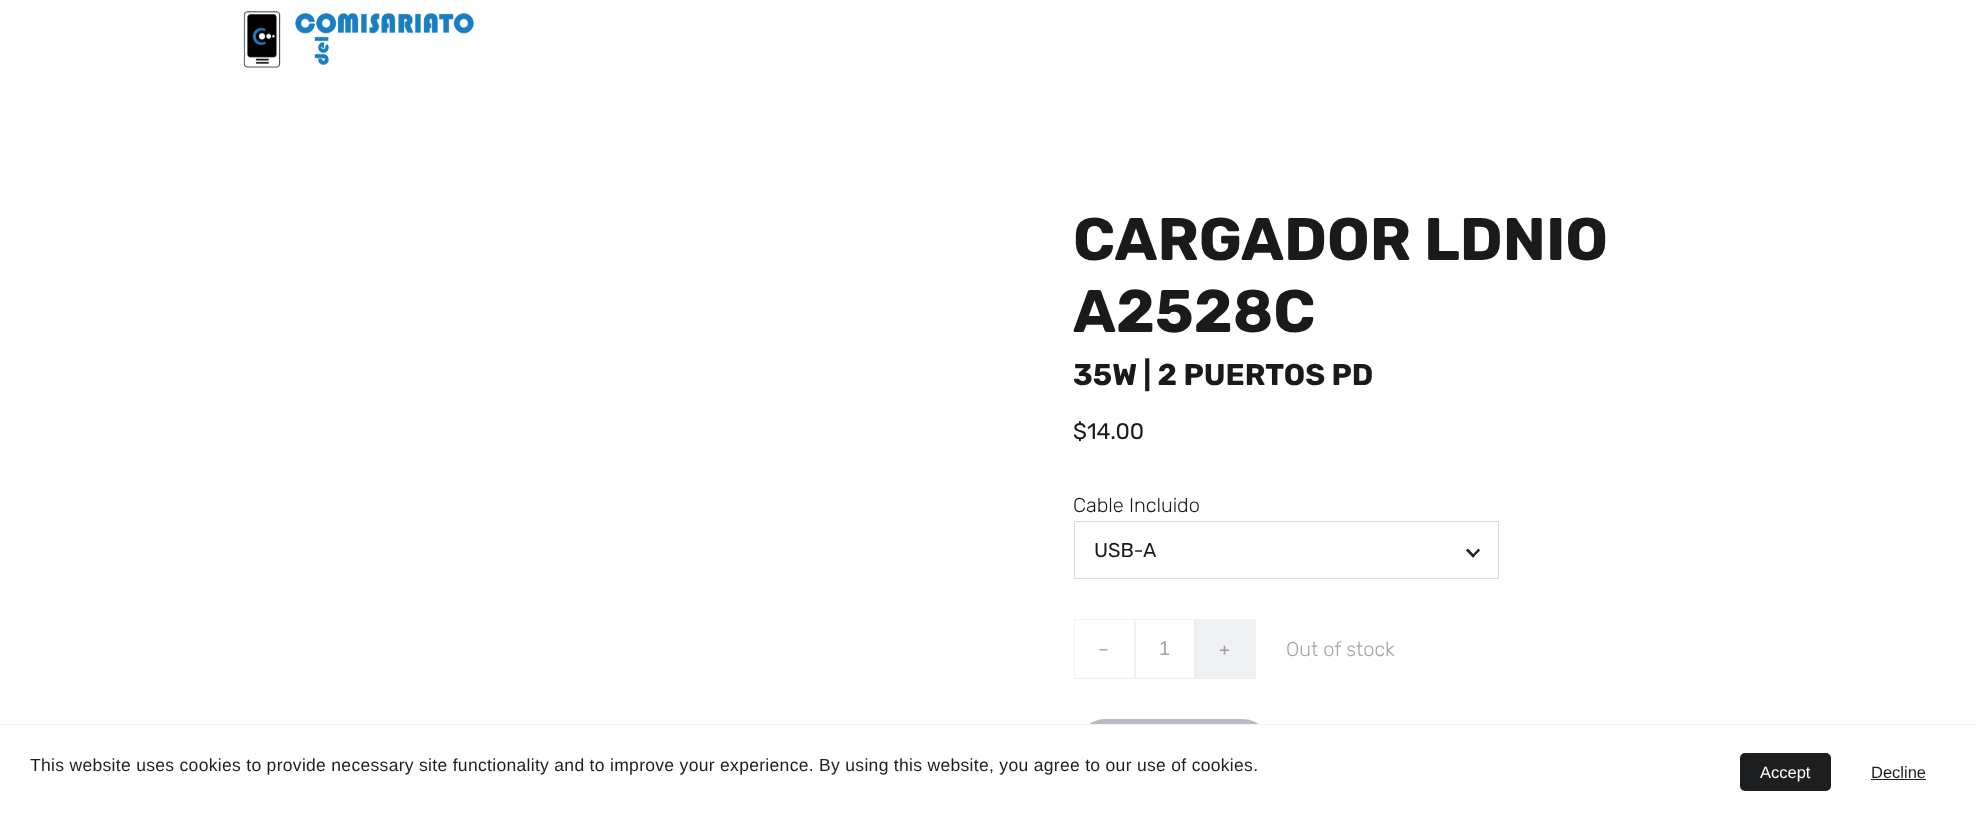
async function draw(canvas) {
	canvas.width = 1976;
	canvas.height = 818;
	const c = canvas.getContext('2d');
	c.miterLimit = 4;
	c.fontKerning = 'normal';
	async function loadImage(src) {
		const img = new Image();
		img.src = src;
		await img.decode();
		return img;
	}

	c.fillStyle = '#fff';
	c.fillRect(0, 0, 1976, 818);
	c.drawImage(await loadImage('img1.png'), 243, 11, 231, 57);
	c.font = '300 60px Rubik';
	c.fillStyle = '#1a1a1a';
	c.fillText('CARGADOR LDNIO', 1073, 260);
	c.fillText('A2528C', 1073, 332);
	c.font = '300 30px Rubik';
	c.fillText('35W | 2 PUERTOS PD', 1073, 385);
	c.font = '300 22.5px "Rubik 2"';
	c.fillText('$14.00', 1073, 439);
	c.font = '300 20px "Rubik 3"';
	c.fillText('Cable Incluido', 1073, 512);
	c.strokeStyle = '#dadce0';
	c.strokeRect(1074.5, 521.5, 424, 57);
	c.font = '300 20px "Rubik 2"';
	c.fillText('USB-A', 1094, 557);
	c.fillStyle = '#1d1e20';
	c.beginPath();
	c.moveTo(1480, 550.5);
	c.lineTo(1473, 557.5);
	c.lineTo(1471.5, 556);
	c.lineTo(1478.5, 548.5);
	c.closePath();
	c.fill();
	c.beginPath();
	c.moveTo(1475, 556);
	c.lineTo(1473, 557.5);
	c.lineTo(1466, 550.5);
	c.lineTo(1468, 548.5);
	c.closePath();
	c.fill();
	c.strokeStyle = '#f0f1f3';
	c.strokeRect(1074.5, 619.5, 181, 59);
	c.fillStyle = '#f0f1f3';
	c.fillRect(1134, 620, 2, 58);
	c.font = '20px DM Sans';
	c.fillStyle = '#a5a5a6';
	c.fillText('-', 1098, 656);
	c.fillStyle = '#f0f1f3';
	c.fillRect(1194, 620, 1, 58);
	c.font = '20px Liberation Sans';
	c.fillStyle = '#a5a5a6';
	c.fillText('1', 1159, 655);
	c.fillStyle = '#f0f1f3';
	c.fillRect(1196, 620, 59, 58);
	c.fillStyle = '#e7e9eb';
	c.fillRect(1195, 620, 1, 58);
	c.font = '20px DM Sans';
	c.fillStyle = '#9c9d9f';
	c.fillText('+', 1219, 656);
	c.font = '300 20px "Rubik 3"';
	c.fillStyle = '#a5a5a6';
	c.fillText('Out of stock', 1286, 656);
	c.fillStyle = '#b6bcc2';
	c.beginPath();
	c.roundRect(1074, 719, 200, 64, 32);
	c.fill();
	c.fillStyle = '#fff';
	c.fillRect(1074, 725, 200, 58);
	c.fillStyle = '#f2f3f6';
	c.fillRect(0, 724, 1976, 1);
	c.letterSpacing = '0.31px';
	c.font = '17.5px Liberation Sans';
	c.fillStyle = '#1d1e20';
	c.fillText('This website uses cookies to provide necessary site functionality and to improve your experience. By using this website, you agree to our use of cookies.', 30, 771);
	c.beginPath();
	c.roundRect(1740, 753, 91, 38, 5);
	c.fill();
	c.letterSpacing = '0px';
	c.font = '16.5px Liberation Sans';
	c.fillStyle = '#fff';
	c.fillText('Accept', 1760, 778);
	c.fillStyle = '#1d1e20';
	c.fillText('Decline', 1871, 778);
	c.fillRect(1871, 779, 55, 1);
}

draw(document.querySelector('canvas'));
